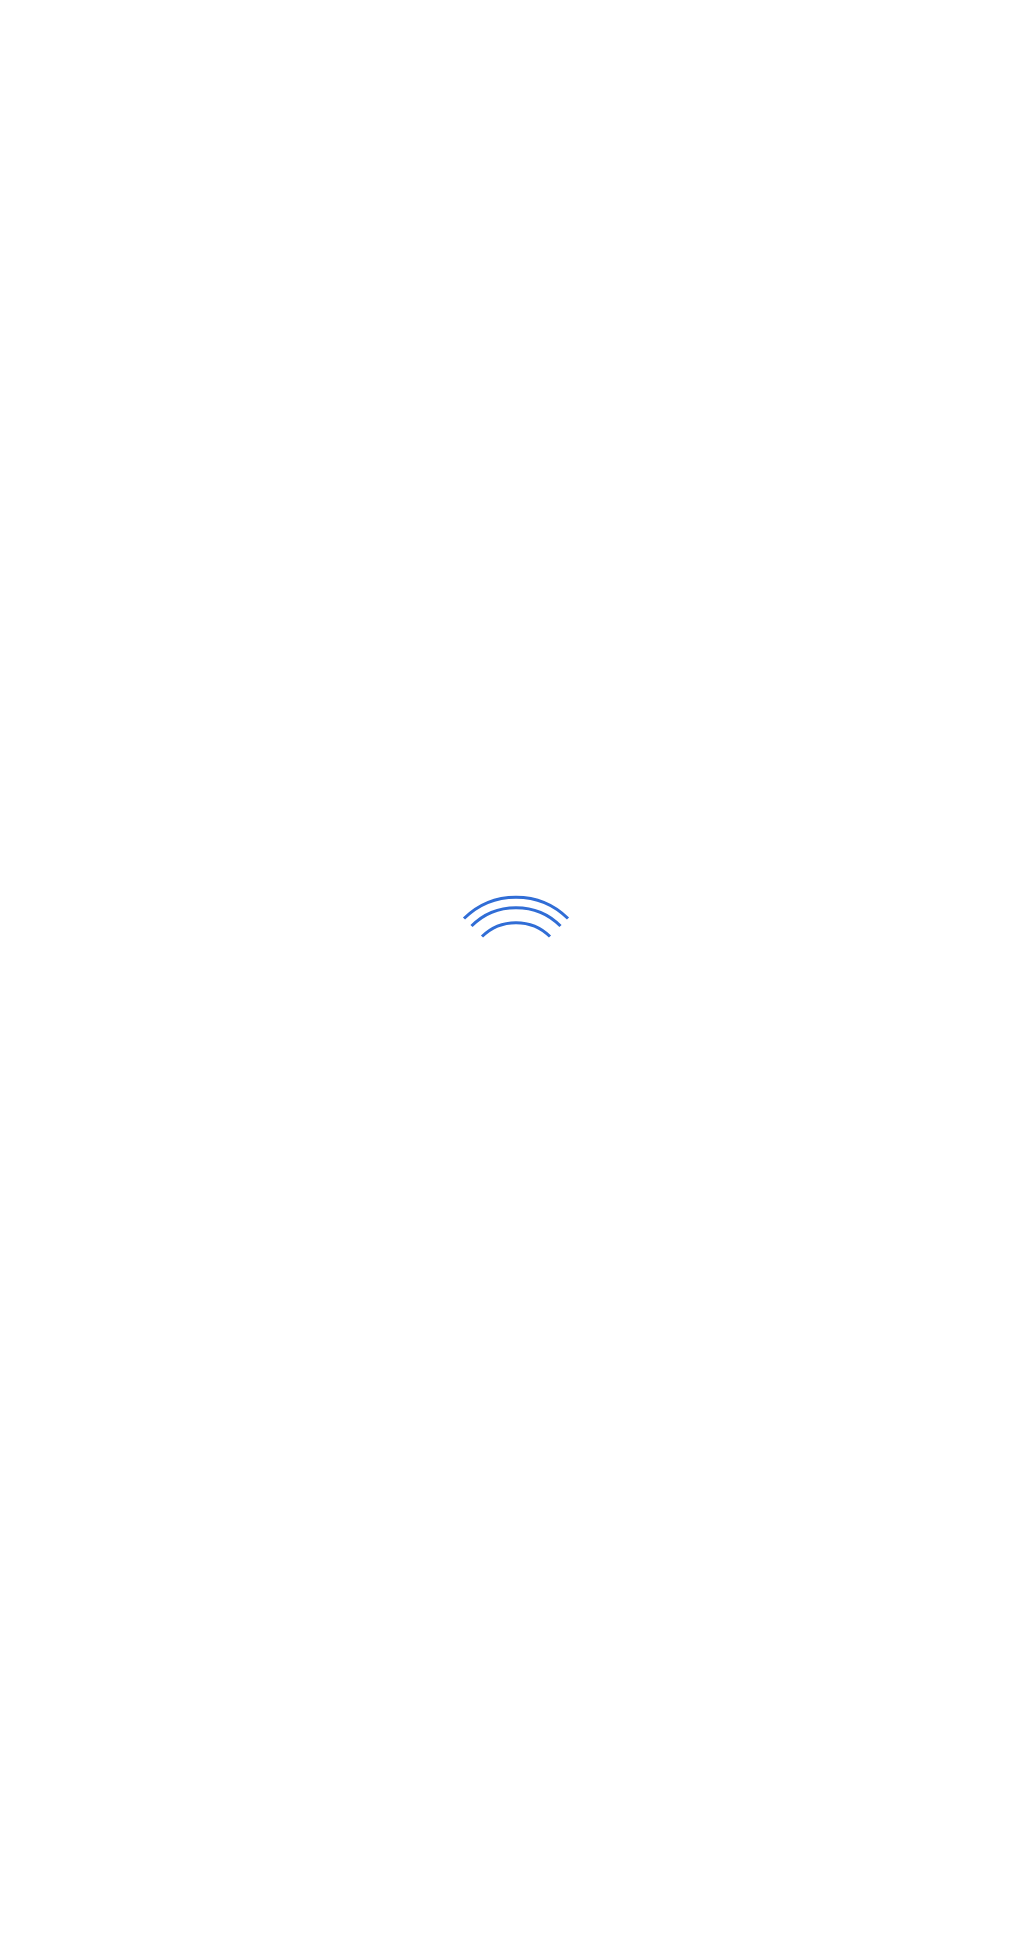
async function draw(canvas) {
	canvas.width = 1030;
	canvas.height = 1941;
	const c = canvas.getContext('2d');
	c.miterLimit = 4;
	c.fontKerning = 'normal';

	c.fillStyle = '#fff';
	c.fillRect(0, 0, 1030, 1941);
	c.beginPath();
	c.moveTo(464, 918.5);
	c.bezierCurveTo(492.5, 890, 539.5, 890, 568, 918.5);
	c.strokeStyle = '#306dd6';
	c.lineWidth = 3;
	c.stroke();
	c.beginPath();
	c.moveTo(471.5, 926);
	c.bezierCurveTo(495.5, 901.5, 536.5, 901.5, 560.5, 926);
	c.stroke();
	c.beginPath();
	c.moveTo(482, 936.5);
	c.bezierCurveTo(500.5, 918, 531.5, 918, 550, 936.5);
	c.stroke();
}

draw(document.querySelector('canvas'));
